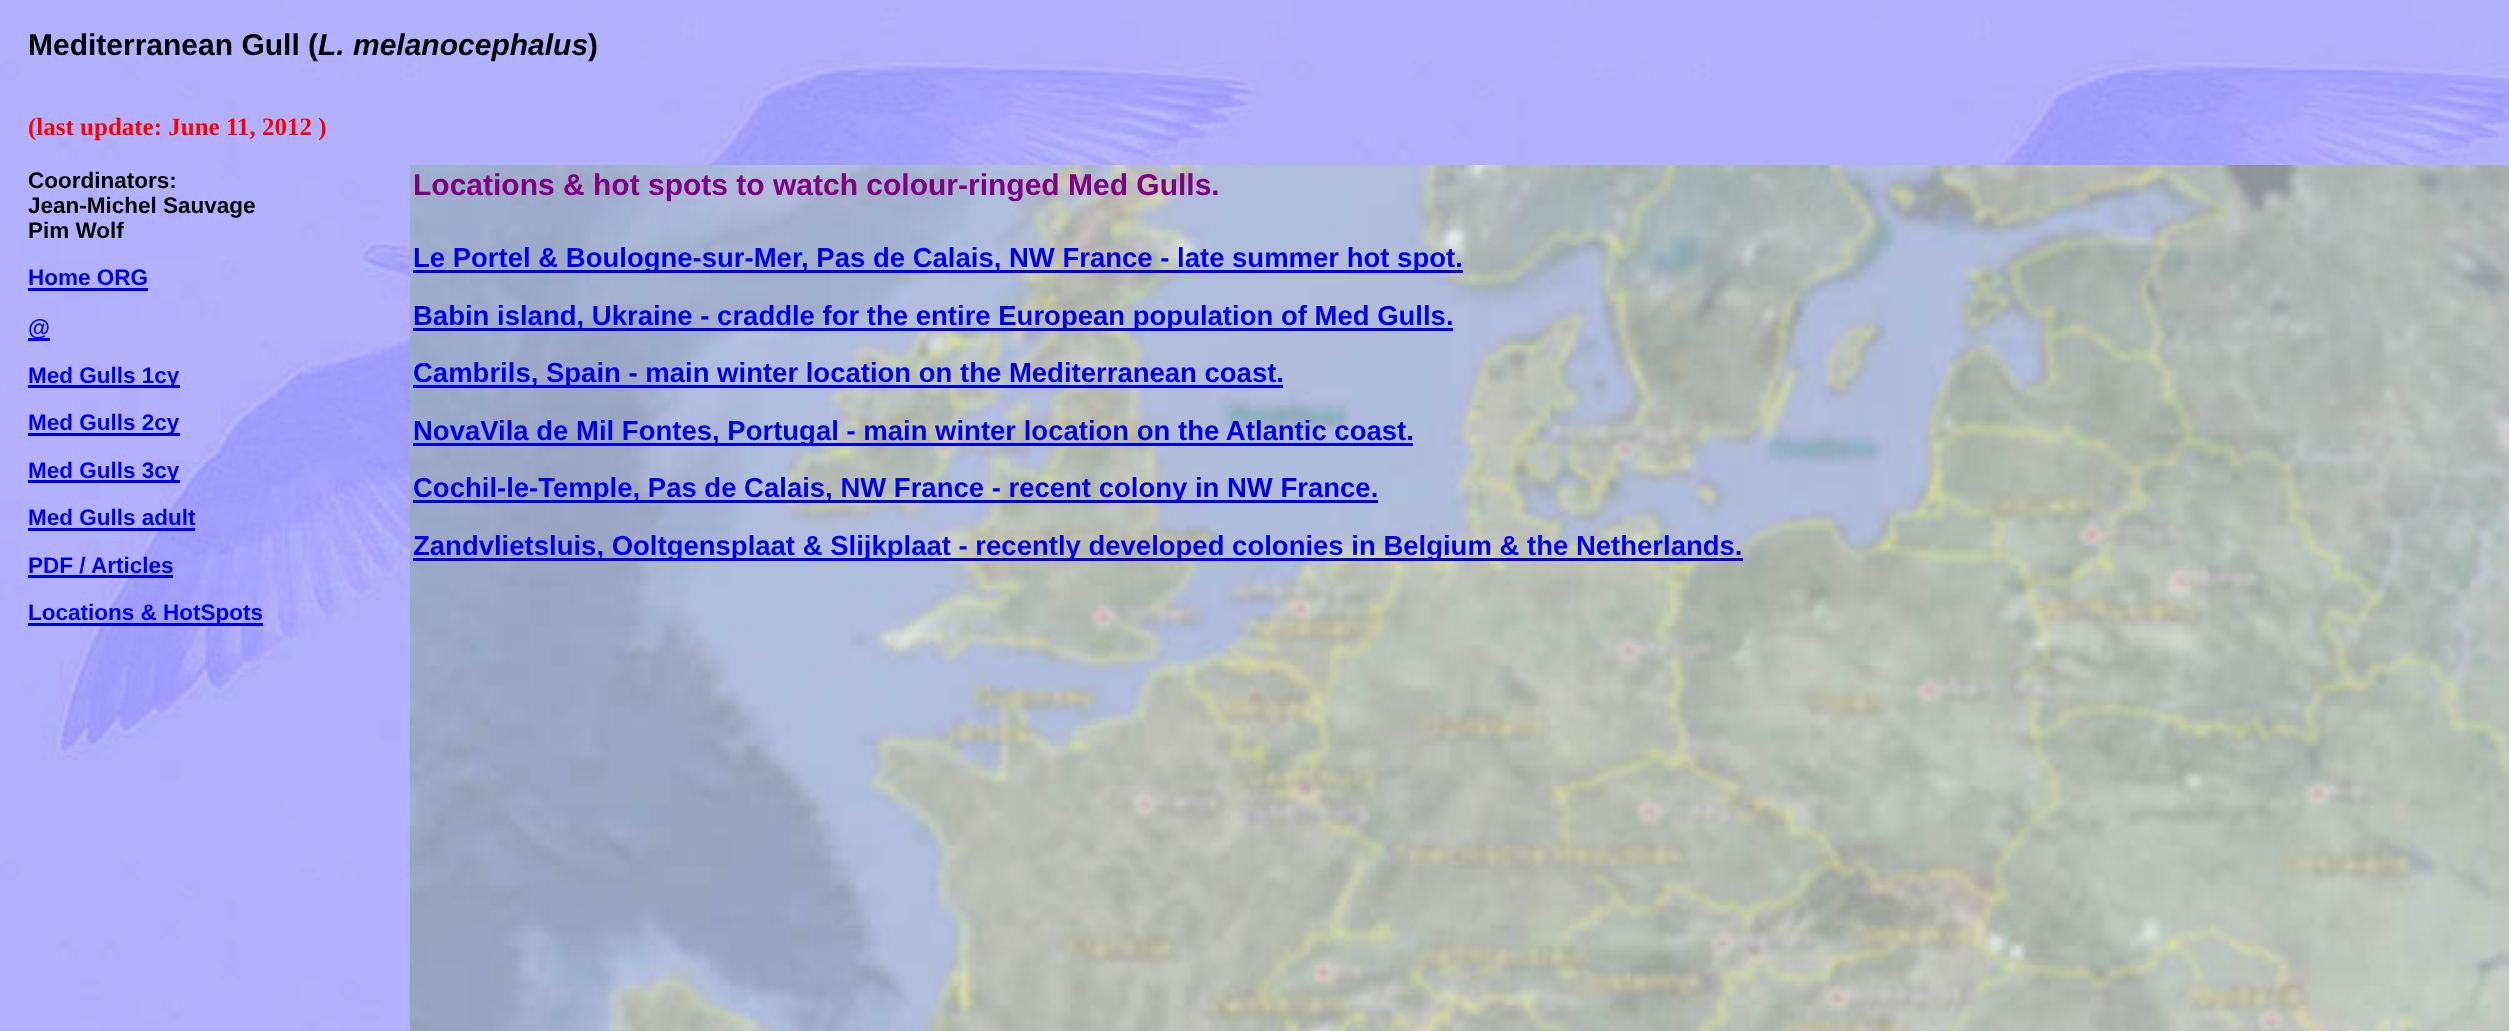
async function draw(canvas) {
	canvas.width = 2509;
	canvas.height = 1031;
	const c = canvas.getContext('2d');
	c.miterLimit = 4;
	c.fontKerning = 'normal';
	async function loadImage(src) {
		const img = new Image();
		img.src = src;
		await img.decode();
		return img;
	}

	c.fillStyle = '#fff';
	c.fillRect(0, 0, 2509, 1031);
	c.drawImage(await loadImage('img1.png'), 0, 0, 2509, 1031);
	c.font = 'bold 30px Liberation Sans';
	c.fillStyle = '#000';
	c.fillText('Mediterranean Gull (', 28, 55);
	c.font = 'italic bold 30px Liberation Sans';
	c.fillText('L. melanocephalus', 318, 55);
	c.font = 'bold 30px Liberation Sans';
	c.fillText(')', 588, 55);
	c.font = 'bold 25px Liberation Serif';
	c.fillStyle = '#f00';
	c.fillText('(last update: June 11, 2012 )', 28, 135);
	c.font = 'bold 22.5px Liberation Sans';
	c.fillStyle = '#000';
	for (const [text, x, y] of [
		['Coordinators:', 28, 188],
		['Jean-Michel Sauvage', 28, 213],
		['Pim Wolf', 28, 238],
	]) {
		c.fillText(text, x, y);
	}
	c.fillStyle = '#00e';
	c.fillText('Home ORG', 28, 285);
	c.fillRect(28, 288, 120, 3);
	c.fillRect(28, 338, 22, 3);
	c.fillText('@', 28, 335);
	c.fillRect(28, 385, 152, 3);
	c.fillText('Med Gulls 1cy', 28, 383);
	c.fillRect(28, 433, 152, 3);
	c.fillText('Med Gulls 2cy', 28, 430);
	c.fillRect(28, 480, 152, 3);
	c.fillText('Med Gulls 3cy', 28, 478);
	c.fillText('Med Gulls adult', 28, 525);
	c.fillRect(28, 528, 167, 3);
	c.fillText('PDF / Articles', 28, 573);
	c.fillRect(28, 575, 145, 3);
	c.fillRect(28, 623, 235, 3);
	c.fillText('Locations & HotSpots', 28, 620);
	c.drawImage(await loadImage('img2.png'), 410, 165, 2099, 866);
	c.font = 'bold 30px Liberation Sans';
	c.fillStyle = '#800080';
	c.fillText('Locations & hot spots to watch colour-ringed Med Gulls.', 413, 195);
	c.fillStyle = '#00e';
	c.fillRect(413, 270, 1050, 3);
	c.font = 'bold 27.5px Liberation Sans';
	c.fillText('Le Portel & Boulogne-sur-Mer, Pas de Calais, NW France - late summer hot spot.', 413, 267);
	c.fillRect(413, 328, 1040, 3);
	c.fillText('Babin island, Ukraine - craddle for the entire European population of Med Gulls.', 413, 325);
	c.fillRect(413, 385, 870, 3);
	c.fillText('Cambrils, Spain - main winter location on the Mediterranean coast.', 413, 382);
	c.fillRect(413, 443, 1000, 3);
	c.fillText('NovaVila de Mil Fontes, Portugal - main winter location on the Atlantic coast.', 413, 440);
	c.fillRect(413, 500, 965, 3);
	c.fillText('Cochil-le-Temple, Pas de Calais, NW France - recent colony in NW France.', 413, 497);
	c.fillRect(413, 558, 1330, 3);
	c.fillText('Zandvlietsluis, Ooltgensplaat & Slijkplaat - recently developed colonies in Belgium & the Netherlands.', 413, 555);
}

draw(document.querySelector('canvas'));
